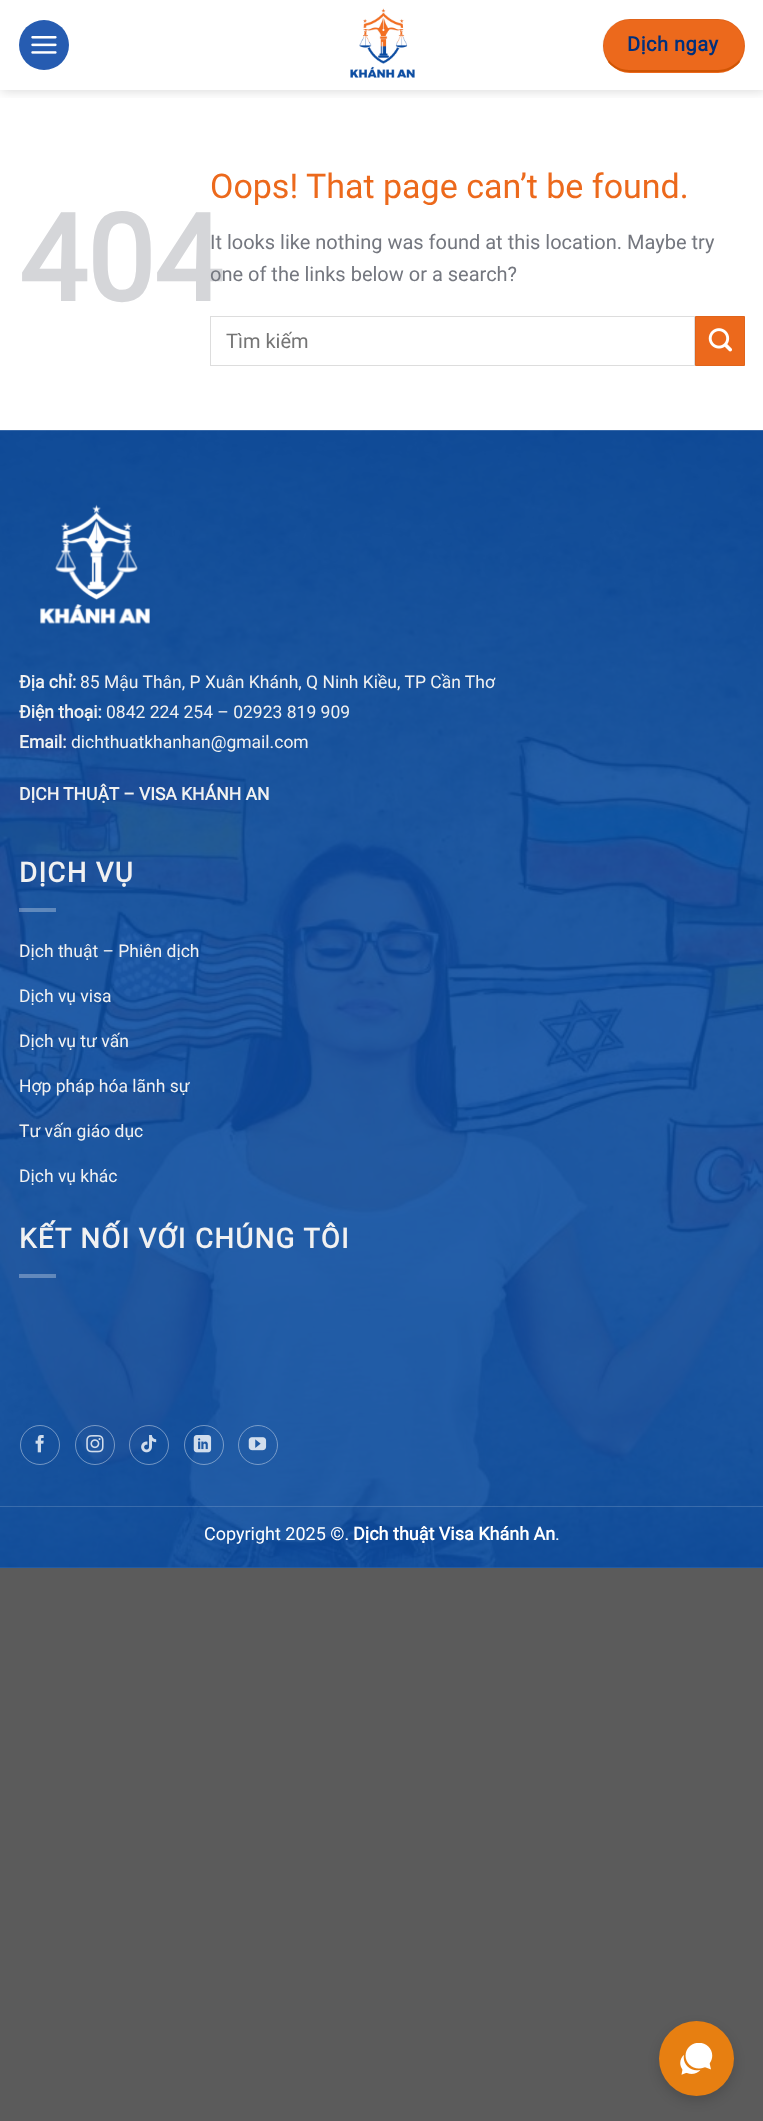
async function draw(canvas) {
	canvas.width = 763;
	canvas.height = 2121;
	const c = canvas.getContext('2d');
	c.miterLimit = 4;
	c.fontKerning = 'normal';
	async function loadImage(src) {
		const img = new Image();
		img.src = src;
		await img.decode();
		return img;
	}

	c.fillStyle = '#5b5b5b';
	c.fillRect(0, 0, 763, 2121);
	c.fillStyle = '#fff';
	c.fillRect(0, 0, 763, 430);
	c.fillStyle = '#245faa';
	c.fillRect(0, 1567, 763, 1);
	c.save();
	c.beginPath();
	c.rect(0, 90, 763, 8);
	c.clip();
	c.fillStyle = '#00000026';
	c.filter = 'blur(6px)';
	c.beginPath();
	c.rect(1, 1, 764, 90);
	c.fill();
	c.filter = 'none';
	c.restore();
	c.fillStyle = '#265cb1';
	c.beginPath();
	c.arc(44, 45, 25, 0, 2 * Math.PI);
	c.fill();
	c.drawImage(await loadImage('img1.png'), 31, 36, 26, 18);
	c.drawImage(await loadImage('img2.png'), 350, 8, 65, 70);
	c.fillStyle = '#ec691c';
	c.beginPath();
	c.roundRect(603, 19, 142, 54, 27);
	c.fill();
	c.fillStyle = '#0000000d';
	c.beginPath();
	c.moveTo(629, 19);
	c.bezierCurveTo(622, 19, 615, 22, 610, 27);
	c.lineTo(611, 27);
	c.bezierCurveTo(616, 23, 622, 20, 629, 20);
	c.lineTo(718, 20);
	c.bezierCurveTo(725, 20, 732, 23, 736, 27);
	c.lineTo(737, 27);
	c.bezierCurveTo(732, 22, 725, 19, 718, 19);
	c.closePath();
	c.fill();
	c.beginPath();
	c.moveTo(737, 27);
	c.bezierCurveTo(746.5, 36, 747.5, 51, 739.5, 61.5);
	c.lineTo(739, 60);
	c.bezierCurveTo(746.5, 50.5, 745, 36, 736.5, 27.5);
	c.closePath();
	c.fill();
	c.fillStyle = '#d05504';
	c.beginPath();
	c.moveTo(740, 62);
	c.bezierCurveTo(735, 68, 727, 72, 718, 72);
	c.lineTo(629, 72);
	c.bezierCurveTo(621, 72, 613, 68, 608, 62);
	c.lineTo(609, 60);
	c.bezierCurveTo(613, 66, 621, 70, 629, 70);
	c.lineTo(718, 70);
	c.bezierCurveTo(726, 70, 734, 66, 739, 60);
	c.closePath();
	c.fill();
	c.fillStyle = '#0000000d';
	c.beginPath();
	c.moveTo(602.5, 41);
	c.bezierCurveTo(603.5, 35.5, 606.5, 30.5, 610.5, 26.5);
	c.lineTo(611, 27.5);
	c.bezierCurveTo(603, 36, 601.5, 50.5, 608.5, 60);
	c.lineTo(608, 61.5);
	c.bezierCurveTo(605.5, 58.5, 603.5, 55, 602.5, 50.5);
	c.closePath();
	c.fill();
	c.letterSpacing = '0.5px';
	c.font = 'bold 20px Roboto';
	c.fillStyle = '#00307c';
	c.fillText('Dịch ngay', 627, 51);
	c.letterSpacing = '0px';
	c.font = 'bold 120px Roboto';
	c.fillStyle = '#d5d6d9';
	c.fillText('404', 19, 301);
	c.font = '34px Roboto';
	c.fillStyle = '#ec691c';
	c.fillText('Oops! That page can’t be found.', 210, 198);
	c.font = '20px Roboto';
	c.fillStyle = '#74777f';
	c.fillText('It looks like nothing was found at this location. Maybe try', 210, 249);
	c.fillText('one of the links below or a search?', 210, 281);
	c.strokeStyle = '#ddd';
	c.strokeRect(210.5, 316.5, 484, 49);
	c.fillStyle = '#757575';
	c.fillText('Tìm kiếm', 226, 348);
	c.fillStyle = '#ec691c';
	c.beginPath();
	c.rect(695.5, 316.5, 49, 49);
	c.fill();
	c.strokeStyle = '#e0641b';
	c.stroke();
	c.drawImage(await loadImage('img3.png'), 708, 328, 24, 24);
	c.drawImage(await loadImage('img4.png'), 0, 430, 763, 1138);
	c.fillStyle = '#ffffff29';
	c.fillRect(0, 430, 763, 1);
	c.drawImage(await loadImage('img5.png'), 40, 504, 110, 120);
	c.font = 'bold 17.5px Roboto';
	c.fillStyle = '#f1f1f1';
	c.fillText('Địa chỉ:', 19, 688);
	c.font = '17.5px Roboto';
	c.fillText('85 Mậu Thân, P Xuân Khánh, Q Ninh Kiều, TP Cần Thơ', 80, 688);
	c.font = 'bold 17.5px Roboto';
	c.fillText('Điện thoại:', 19, 718);
	c.font = '17.5px Roboto';
	c.fillText('0842 224 254 – 02923 819 909', 106, 718);
	c.font = 'bold 17.5px Roboto';
	c.fillText('Email:', 19, 748);
	c.font = '17.5px Roboto';
	c.fillText('dichthuatkhanhan@gmail.com', 71, 748);
	c.font = 'bold 17.5px Roboto';
	c.fillText('DỊCH THUẬT – VISA KHÁNH AN', 19, 800);
	c.letterSpacing = '1.4px';
	c.font = 'bold 27.5px Roboto';
	c.fillText('DỊCH VỤ', 19, 882);
	c.fillStyle = '#ffffff4d';
	c.fillRect(19, 908, 37, 4);
	c.letterSpacing = '0px';
	c.font = '17.5px Roboto';
	c.fillStyle = '#f1f1f1';
	for (const [text, x, y] of [
		['Dịch thuật – Phiên dịch', 19, 957],
		['Dịch vụ visa', 19, 1002],
		['Dịch vụ tư vấn', 19, 1047],
		['Hợp pháp hóa lãnh sự', 19, 1092],
		['Tư vấn giáo dục', 19, 1137],
		['Dịch vụ khác', 19, 1182],
	]) {
		c.fillText(text, x, y);
	}
	c.letterSpacing = '1.4px';
	c.font = 'bold 27.5px Roboto';
	c.fillText('KẾT NỐI VỚI CHÚNG TÔI', 19, 1248);
	c.fillStyle = '#ffffff4d';
	c.fillRect(19, 1274, 37, 4);
	c.beginPath();
	c.arc(40, 1445, 19.5, 0, 2 * Math.PI);
	c.strokeStyle = '#ffffff66';
	c.stroke();
	c.drawImage(await loadImage('img6.png'), 35, 1435, 9, 18);
	c.beginPath();
	c.arc(95, 1445, 19.5, 0, 2 * Math.PI);
	c.stroke();
	c.drawImage(await loadImage('img7.png'), 86, 1435, 18, 18);
	c.beginPath();
	c.arc(149, 1445, 19.5, 0, 2 * Math.PI);
	c.stroke();
	c.drawImage(await loadImage('img8.png'), 141, 1435, 16, 18);
	c.beginPath();
	c.arc(204, 1445, 19.5, 0, 2 * Math.PI);
	c.stroke();
	c.drawImage(await loadImage('img9.png'), 193, 1435, 19, 18);
	c.beginPath();
	c.arc(258, 1445, 19.5, 0, 2 * Math.PI);
	c.strokeStyle = '#799cc9';
	c.stroke();
	c.drawImage(await loadImage('img10.png'), 248, 1437, 19, 14);
	c.fillStyle = '#ffffff29';
	c.fillRect(0, 1506, 763, 1);
	c.letterSpacing = '0px';
	c.font = '18px Roboto';
	c.fillStyle = '#fff';
	c.fillText('Copyright 2025 ©.', 204, 1540);
	c.font = 'bold 18px Roboto';
	c.fillText('Dịch thuật Visa Khánh An', 353, 1540);
	c.font = '18px Roboto';
	c.fillText('.', 555, 1540);
	c.fillStyle = '#00000026';
	c.filter = 'blur(6px)';
	c.beginPath();
	c.roundRect(659, 2026, 75, 75, 37.5);
	c.fill();
	c.filter = 'none';
	c.fillStyle = '#e77f11';
	c.beginPath();
	c.arc(696.5, 2058.5, 37.5, 0, 2 * Math.PI);
	c.fill();
	c.drawImage(await loadImage('img11.png'), 680, 2043, 33, 32);
}

draw(document.querySelector('canvas'));
